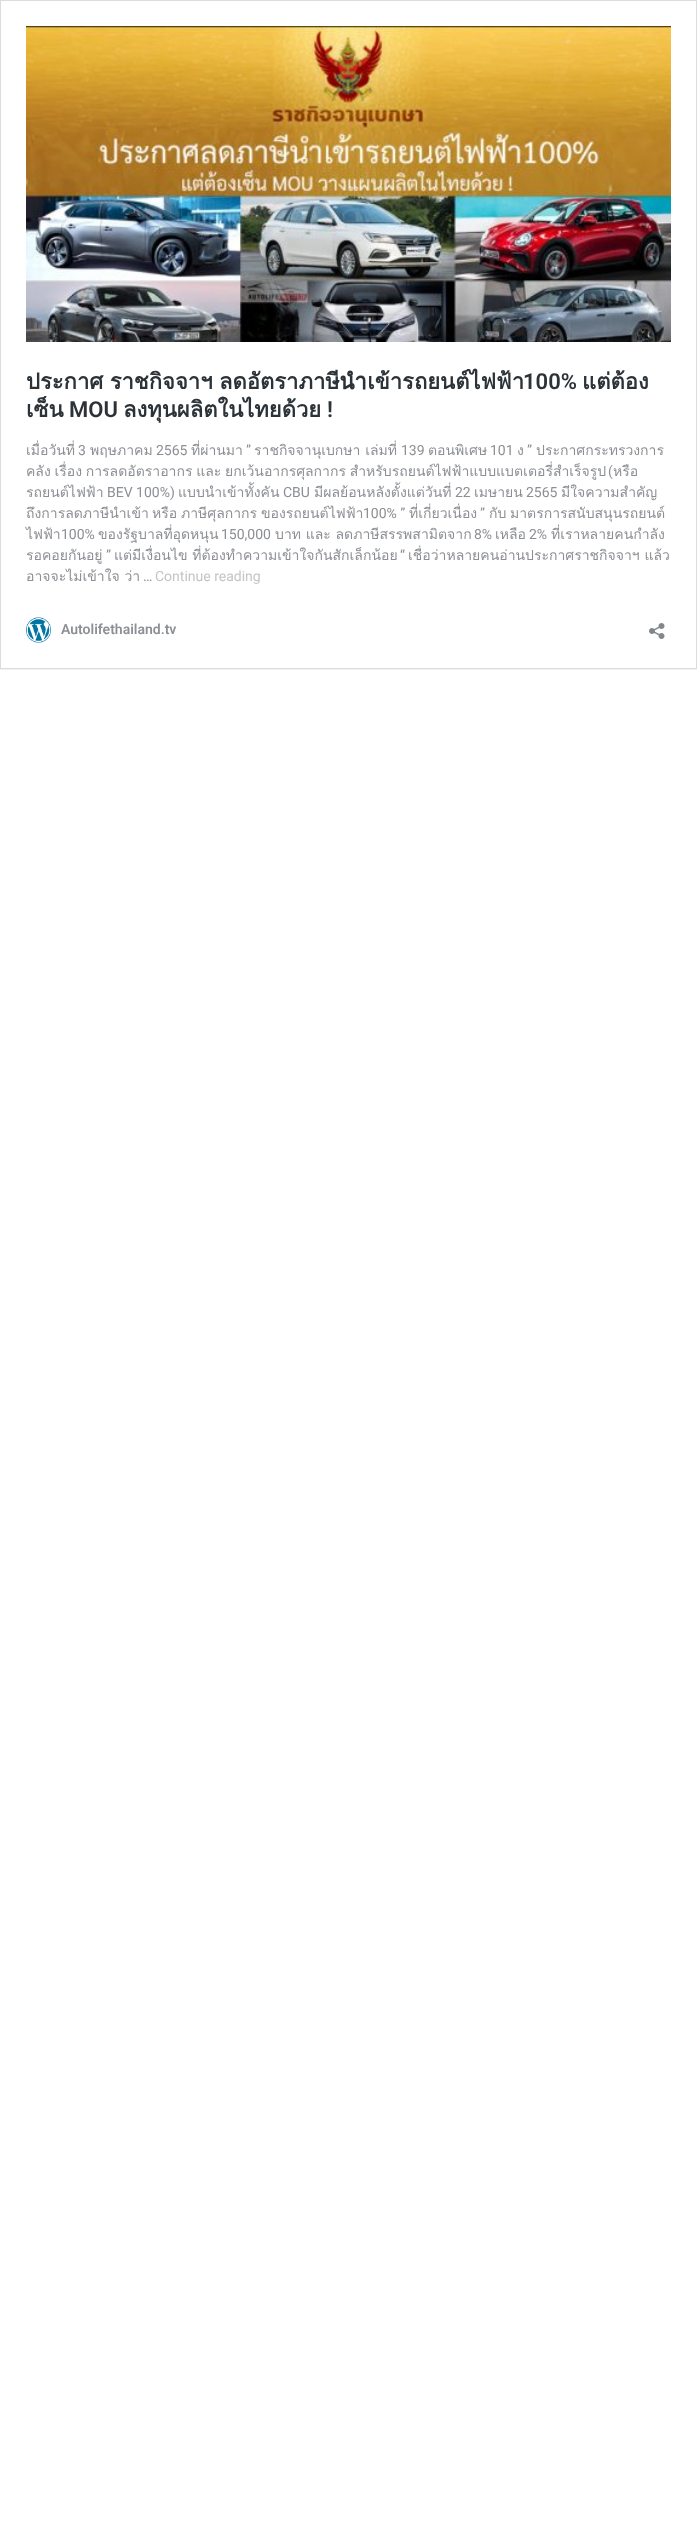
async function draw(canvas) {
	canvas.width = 697;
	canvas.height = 2544;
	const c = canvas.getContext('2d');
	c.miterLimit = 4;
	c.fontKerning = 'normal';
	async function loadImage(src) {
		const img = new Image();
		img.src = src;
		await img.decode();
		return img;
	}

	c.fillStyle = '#fff';
	c.fillRect(0, 0, 697, 2544);
	c.save();
	c.beginPath();
	c.rect(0, 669, 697, 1);
	c.clip();
	c.fillStyle = '#0000000d';
	c.filter = 'blur(0.5px)';
	c.beginPath();
	c.rect(0, 1, 697, 669);
	c.fill();
	c.filter = 'none';
	c.restore();
	c.strokeStyle = '#dcdcde';
	c.strokeRect(0.5, 0.5, 696, 668);
	c.drawImage(await loadImage('img1.png'), 26, 26, 645, 316);
	c.wordSpacing = '-1px';
	c.font = 'bold 22px Loma';
	c.fillStyle = '#2c3338';
	c.fillText('ประกาศ ราชกิจจาฯ ลดอัตราภาษีนำเข้ารถยนต์ไฟฟ้า', 26, 389);
	c.wordSpacing = '0px';
	c.font = '600 22px Roboto';
	c.fillText('100%', 523, 389);
	c.font = 'bold 22px Loma';
	c.fillText('แต่ต้อง', 582, 389);
	c.fillText('เซ็น', 26, 417);
	c.font = '600 22px Roboto';
	c.fillText('MOU', 69, 417);
	c.font = 'bold 22px Loma';
	c.fillText('ลงทุนผลิตในไทยด้วย', 123, 417);
	c.font = '600 22px Roboto';
	c.fillText('!', 327, 417);
	c.font = '14px Loma';
	c.fillStyle = '#8c8f94';
	c.fillText('เมื่อวันที่', 26, 455);
	c.font = '14px Roboto';
	c.fillText('3', 78, 455);
	c.font = '14px Loma';
	c.fillText('พฤษภาคม', 90, 455);
	c.font = '14px Roboto';
	c.fillText('2565', 156, 455);
	c.font = '14px Loma';
	c.fillText('ที่ผ่านมา', 191, 455);
	c.font = '14px Roboto';
	c.fillText('”', 246, 455);
	c.font = '14px Loma';
	c.fillText('ราชกิจจานุเบกษา เล่มที่', 254, 455);
	c.font = '14px Roboto';
	c.fillText('139', 401, 455);
	c.font = '14px Loma';
	c.fillText('ตอนพิเศษ', 428, 455);
	c.font = '14px Roboto';
	c.fillText('101', 490, 455);
	c.font = '14px Loma';
	c.fillText('ง', 517, 455);
	c.font = '14px Roboto';
	c.fillText('”', 527, 455);
	c.font = '14px Loma';
	c.fillText('ประกาศกระทรวงการ', 536, 455);
	c.wordSpacing = '-1px';
	c.fillText('คลัง เรื่อง การลดอัตราอากร และ ยกเว้นอากรศุลกากร สำหรับรถยนต์ไฟฟ้าแบบแบตเตอรี่สำเร็จรูป', 26, 476);
	c.wordSpacing = '0px';
	c.font = '14px Roboto';
	c.fillText('(', 608, 476);
	c.font = '14px Loma';
	c.fillText('หรือ', 613, 476);
	c.fillText('รถยนต์ไฟฟ้า', 26, 497);
	c.font = '14px Roboto';
	c.fillText('BEV 100%)', 107, 497);
	c.font = '14px Loma';
	c.fillText('แบบนำเข้าทั้งคัน', 178, 497);
	c.font = '14px Roboto';
	c.fillText('CBU', 283, 497);
	c.font = '14px Loma';
	c.fillText('มีผลย้อนหลังตั้งแต่วันที่', 314, 497);
	c.font = '14px Roboto';
	c.fillText('22', 455, 497);
	c.font = '14px Loma';
	c.fillText('เมษายน', 474, 497);
	c.font = '14px Roboto';
	c.fillText('2565', 526, 497);
	c.font = '14px Loma';
	for (const [text, x, y] of [
		['มีใจความสำคัญ', 561, 497],
		['ถึงการลดภาษีนำเข้า', 26, 518],
		['หรือ', 152, 518],
		['ภาษีศุลกากร', 181, 518],
		['ของรถยนต์ไฟฟ้า', 261, 518],
	]) {
		c.fillText(text, x, y);
	}
	c.font = '14px Roboto';
	c.fillText('100% ”', 363, 518);
	c.font = '14px Loma';
	c.fillText('ที่เกี่ยวเนื่อง', 409, 518);
	c.font = '14px Roboto';
	c.fillText('”', 480, 518);
	c.font = '14px Loma';
	for (const [text, x, y] of [
		['กับ', 489, 518],
		['มาตรการสนับสนุนรถยนต์', 510, 518],
		['ไฟฟ้า', 26, 539],
	]) {
		c.fillText(text, x, y);
	}
	c.font = '14px Roboto';
	c.fillText('100%', 61, 539);
	c.font = '14px Loma';
	c.fillText('ของรัฐบาลที่อุดหนุน', 98, 539);
	c.font = '14px Roboto';
	c.fillText('150,000', 221, 539);
	c.font = '14px Loma';
	c.fillText('บาท และ ลดภาษีสรรพสามิตจาก', 275, 539);
	c.font = '14px Roboto';
	c.fillText('8%', 474, 539);
	c.font = '14px Loma';
	c.fillText('เหลือ', 495, 539);
	c.font = '14px Roboto';
	c.fillText('2%', 529, 539);
	c.font = '14px Loma';
	c.fillText('ที่เราหลายคนกำลัง', 551, 539);
	c.fillText('รอคอยกันอยู่', 26, 560);
	c.font = '14px Roboto';
	c.fillText('”', 106, 560);
	c.font = '14px Loma';
	c.fillText('แต่มีเงื่อนไข ที่ต้องทำความเข้าใจกันสักเล็กน้อย', 114, 560);
	c.font = '14px Roboto';
	c.fillText('“', 400, 560);
	c.font = '14px Loma';
	c.fillText('เชื่อว่าหลายคนอ่านประกาศราชกิจจาฯ แล้ว', 408, 560);
	c.fillText('อาจจะไม่เข้าใจ ว่า', 26, 581);
	c.font = '14px Roboto';
	c.fillText('…', 143, 581);
	c.fillStyle = '#c3c4c7';
	c.fillText('Continue reading', 155, 581);
	c.drawImage(await loadImage('img2.png'), 26, 617, 25, 26);
	c.font = '600 14px Roboto';
	c.fillStyle = '#8c8f94';
	c.fillText('Autolifethailand.tv', 61, 634);
	c.drawImage(await loadImage('img3.png'), 649, 623, 16, 16);
}

draw(document.querySelector('canvas'));
